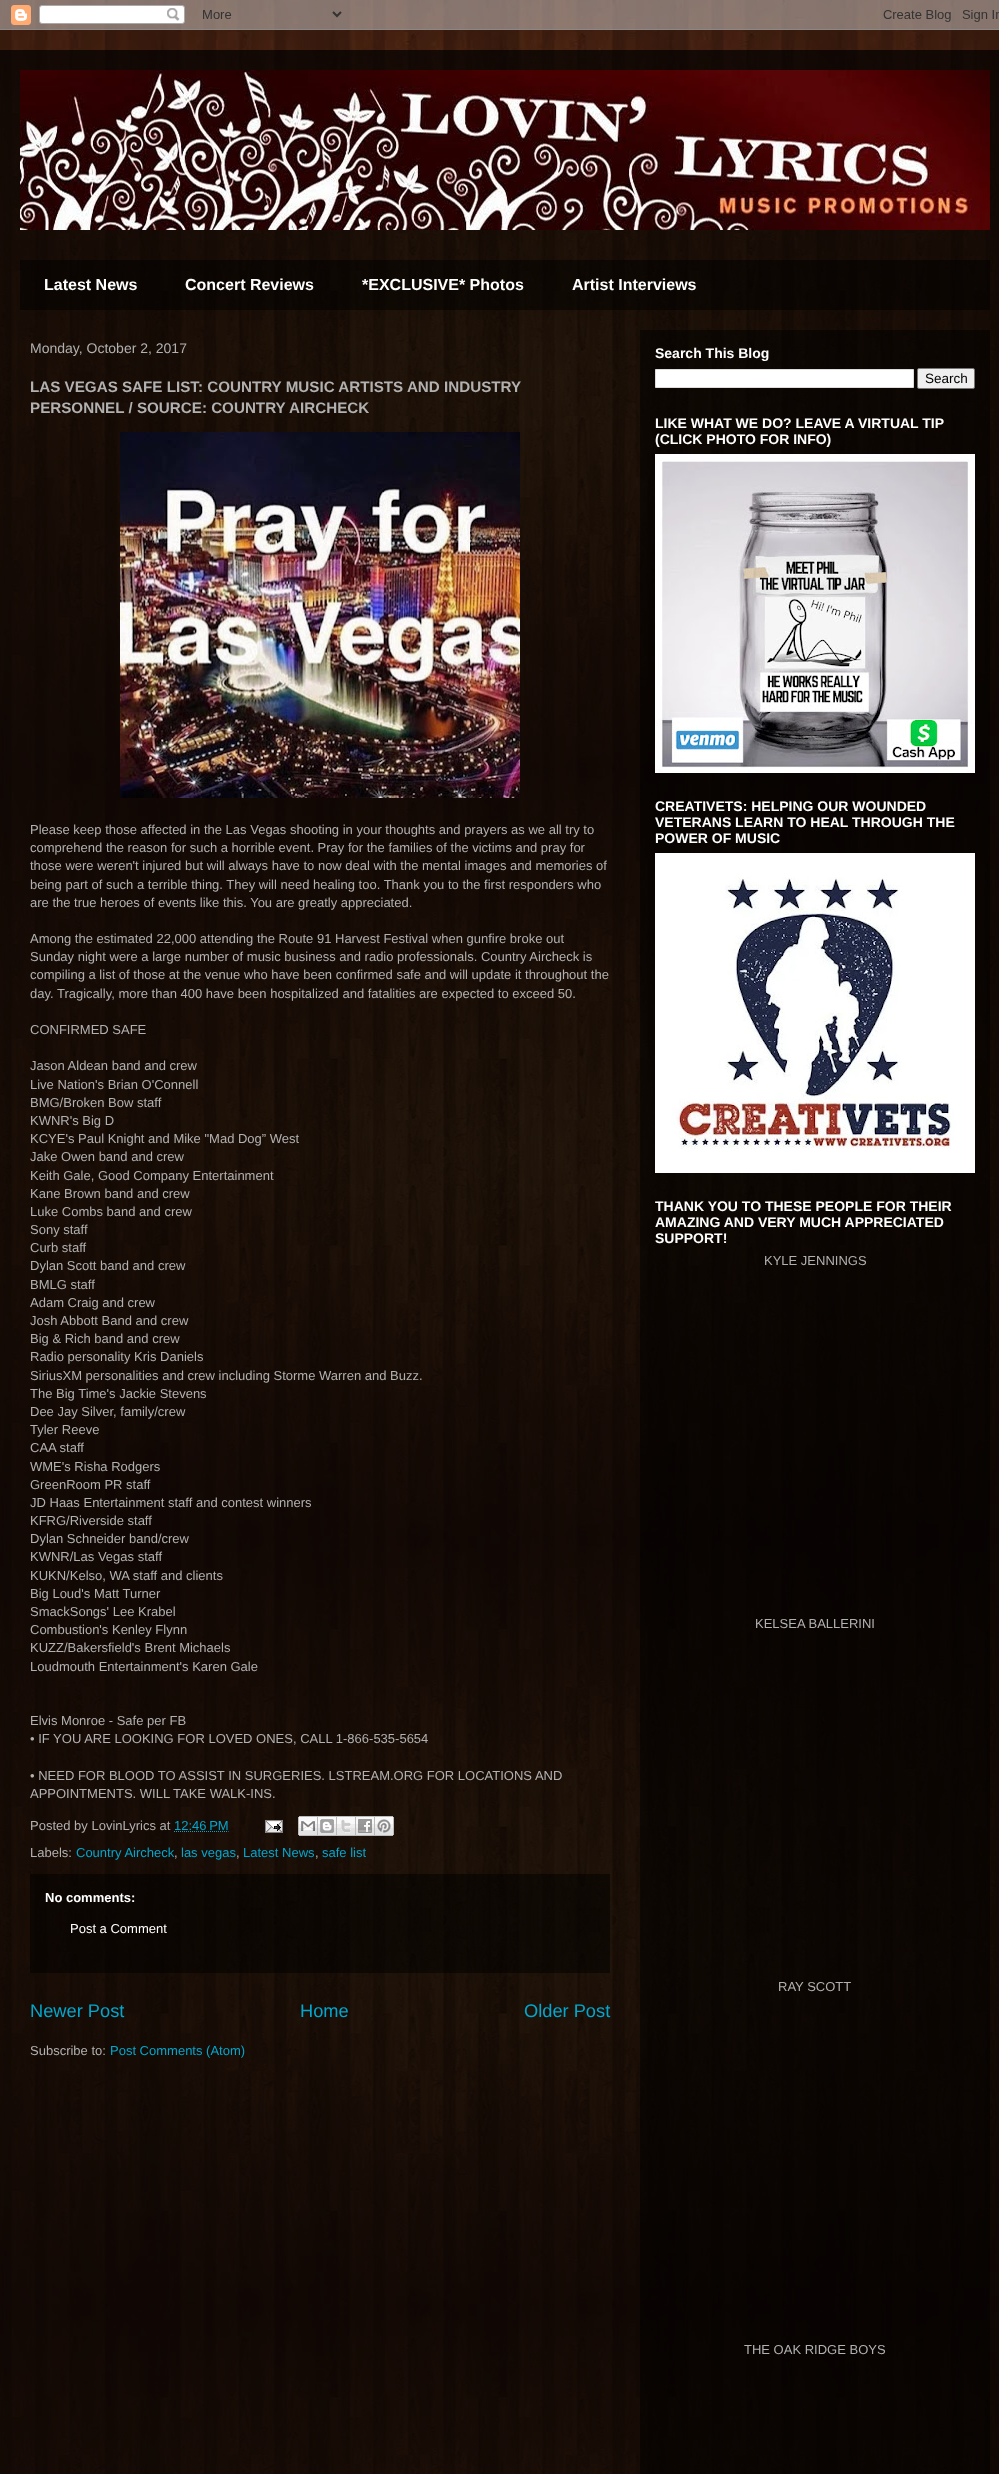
async function draw(canvas) {
	canvas.width = 999;
	canvas.height = 2474;
	const c = canvas.getContext('2d');
	c.miterLimit = 4;
	c.fontKerning = 'normal';
	async function loadImage(src) {
		const img = new Image();
		img.src = src;
		await img.decode();
		return img;
	}

	c.fillStyle = '#fff';
	c.fillRect(0, 0, 999, 2474);
	c.drawImage(await loadImage('img1.png'), 0, 0, 999, 2474);
	c.drawImage(await loadImage('img2.png'), 0, 0, 999, 30);
	c.drawImage(await loadImage('img3.png'), 20, 70, 970, 160);
	c.fillStyle = '#00000080';
	c.fillRect(20, 260, 970, 50);
	c.font = 'bold 16px Liberation Sans';
	c.fillStyle = '#fff';
	for (const [text, x, y] of [
		['Latest News', 44, 290],
		['Concert Reviews', 185, 290],
		['*EXCLUSIVE* Photos', 362, 290],
		['Artist Interviews', 572, 290],
	]) {
		c.fillText(text, x, y);
	}
	c.fillStyle = '#00000080';
	c.fillRect(640, 330, 350, 2144);
	c.font = '14px Liberation Sans';
	c.fillStyle = '#b1b1b1';
	c.fillText('Monday, October 2, 2017', 30, 353);
	c.font = 'bold 15.2px Liberation Sans';
	c.fillText('LAS VEGAS SAFE LIST: COUNTRY MUSIC ARTISTS AND INDUSTRY', 30, 392);
	c.fillText('PERSONNEL / SOURCE: COUNTRY AIRCHECK', 30, 413);
	c.drawImage(await loadImage('img4.png'), 120, 432, 400, 366);
	c.font = '13px Liberation Sans';
	for (const [text, x, y] of [
		['Please keep those affected in the Las Vegas shooting in your thoughts and prayers as we all try to', 30, 834],
		['comprehend the reason for such a horrible event. Pray for the families of the victims and pray for', 30, 852],
		['those were weren\'t injured but will always have to now deal with the mental images and memories of', 30, 870],
		['being part of such a terrible thing. They will need healing too. Thank you to the first responders who', 30, 889],
		['are the true heroes of events like this. You are greatly appreciated.', 30, 907],
		['Among the estimated 22,000 attending the Route 91 Harvest Festival when gunfire broke out', 30, 943],
		['Sunday night were a large number of music business and radio professionals. Country Aircheck is', 30, 961],
		['compiling a list of those at the venue who have been confirmed safe and will update it throughout the', 30, 979],
		['day. Tragically, more than 400 have been hospitalized and fatalities are expected to exceed 50.', 30, 998],
		['CONFIRMED SAFE', 30, 1034],
		['Jason Aldean band and crew', 30, 1070],
		['Live Nation\'s Brian O\'Connell', 30, 1089],
		['BMG/Broken Bow staff', 30, 1107],
		['KWNR\'s Big D', 30, 1125],
		['KCYE\'s Paul Knight and Mike "Mad Dog” West', 30, 1143],
		['Jake Owen band and crew', 30, 1161],
		['Keith Gale, Good Company Entertainment', 30, 1180],
		['Kane Brown band and crew', 30, 1198],
		['Luke Combs band and crew', 30, 1216],
		['Sony staff', 30, 1234],
		['Curb staff', 30, 1252],
		['Dylan Scott band and crew', 30, 1270],
		['BMLG staff', 30, 1289],
		['Adam Craig and crew', 30, 1307],
		['Josh Abbott Band and crew', 30, 1325],
		['Big & Rich band and crew', 30, 1343],
		['Radio personality Kris Daniels', 30, 1361],
		['SiriusXM personalities and crew including Storme Warren and Buzz.', 30, 1380],
		['The Big Time\'s Jackie Stevens', 30, 1398],
		['Dee Jay Silver, family/crew', 30, 1416],
		['Tyler Reeve', 30, 1434],
		['CAA staff', 30, 1452],
		['WME\'s Risha Rodgers', 30, 1471],
		['GreenRoom PR staff', 30, 1489],
		['JD Haas Entertainment staff and contest winners', 30, 1507],
		['KFRG/Riverside staff', 30, 1525],
		['Dylan Schneider band/crew', 30, 1543],
		['KWNR/Las Vegas staff', 30, 1561],
		['KUKN/Kelso, WA staff and clients', 30, 1580],
		['Big Loud\'s Matt Turner', 30, 1598],
		['SmackSongs\' Lee Krabel', 30, 1616],
		['Combustion\'s Kenley Flynn', 30, 1634],
		['KUZZ/Bakersfield\'s Brent Michaels', 30, 1652],
		['Loudmouth Entertainment\'s Karen Gale', 30, 1671],
		['Elvis Monroe - Safe per FB', 30, 1725],
		['• IF YOU ARE LOOKING FOR LOVED ONES, CALL 1-866-535-5654', 30, 1743],
		['• NEED FOR BLOOD TO ASSIST IN SURGERIES. LSTREAM.ORG FOR LOCATIONS AND', 30, 1780],
		['APPOINTMENTS. WILL TAKE WALK-INS.', 30, 1798],
		['Posted by LovinLyrics at', 30, 1830],
	]) {
		c.fillText(text, x, y);
	}
	c.fillStyle = '#00a7ce';
	c.fillText('12:46 PM', 174, 1830);
	c.beginPath();
	c.moveTo(174, 1831.5);
	c.lineTo(228.5, 1831.5);
	c.strokeStyle = '#00a7ce';
	c.setLineDash([1, 1]);
	c.stroke();
	c.drawImage(await loadImage('img5.png'), 265, 1820, 18, 13);
	c.drawImage(await loadImage('img6.png'), 298, 1816, 20, 20);
	c.drawImage(await loadImage('img7.png'), 318, 1816, 19, 20);
	c.drawImage(await loadImage('img8.png'), 337, 1816, 19, 20);
	c.drawImage(await loadImage('img9.png'), 356, 1816, 19, 20);
	c.drawImage(await loadImage('img10.png'), 375, 1816, 19, 20);
	c.fillStyle = '#b1b1b1';
	c.fillText('Labels:', 30, 1857);
	c.fillStyle = '#00a7ce';
	c.fillText('Country Aircheck', 76, 1857);
	c.fillStyle = '#b1b1b1';
	c.fillText(',', 174, 1857);
	c.fillStyle = '#00a7ce';
	c.fillText('las vegas', 181, 1857);
	c.fillStyle = '#b1b1b1';
	c.fillText(',', 236, 1857);
	c.fillStyle = '#00a7ce';
	c.fillText('Latest News', 243, 1857);
	c.fillStyle = '#b1b1b1';
	c.fillText(',', 315, 1857);
	c.fillStyle = '#00a7ce';
	c.fillText('safe list', 322, 1857);
	c.fillStyle = '#00000080';
	c.fillRect(30, 1874, 580, 99);
	c.font = 'bold 13px Liberation Sans';
	c.fillStyle = '#fff';
	c.fillText('No comments:', 45, 1902);
	c.font = '13px Liberation Sans';
	c.fillText('Post a Comment', 70, 1933);
	c.font = '18.25px Liberation Sans';
	c.fillStyle = '#00a7ce';
	for (const [text, x, y] of [
		['Newer Post', 30, 2017],
		['Home', 300, 2017],
		['Older Post', 524, 2017],
	]) {
		c.fillText(text, x, y);
	}
	c.font = '13px Liberation Sans';
	c.fillStyle = '#b1b1b1';
	c.fillText('Subscribe to:', 30, 2055);
	c.fillStyle = '#00a7ce';
	c.fillText('Post Comments (Atom)', 110, 2055);
	c.font = 'bold 14px Liberation Sans';
	c.fillStyle = '#fff';
	c.fillText('Search This Blog', 655, 358);
	c.beginPath();
	c.rect(655.5, 369.5, 258, 18);
	c.fill();
	c.strokeStyle = '#ddd';
	c.setLineDash([]);
	c.stroke();
	c.fillStyle = '#efefef';
	c.beginPath();
	c.roundRect(917.5, 368.5, 57, 20, 1.5);
	c.fill();
	c.strokeStyle = '#767676';
	c.stroke();
	c.font = '13.5px Liberation Sans';
	c.fillStyle = '#000';
	c.fillText('Search', 925, 383);
	c.font = 'bold 14px Liberation Sans';
	c.fillStyle = '#fff';
	c.fillText('LIKE WHAT WE DO? LEAVE A VIRTUAL TIP', 655, 428);
	c.fillText('(CLICK PHOTO FOR INFO)', 655, 444);
	c.drawImage(await loadImage('img11.png'), 655, 454, 320, 319);
	for (const [text, x, y] of [
		['CREATIVETS: HELPING OUR WOUNDED', 655, 811],
		['VETERANS LEARN TO HEAL THROUGH THE', 655, 827],
		['POWER OF MUSIC', 655, 843],
	]) {
		c.fillText(text, x, y);
	}
	c.drawImage(await loadImage('img12.png'), 655, 853, 320, 320);
	for (const [text, x, y] of [
		['THANK YOU TO THESE PEOPLE FOR THEIR', 655, 1211],
		['AMAZING AND VERY MUCH APPRECIATED', 655, 1227],
		['SUPPORT!', 655, 1243],
	]) {
		c.fillText(text, x, y);
	}
	c.font = '13px Liberation Sans';
	c.fillStyle = '#b1b1b1';
	for (const [text, x, y] of [
		['KYLE JENNINGS', 764, 1265],
		['KELSEA BALLERINI', 755, 1628],
		['RAY SCOTT', 778, 1991],
		['THE OAK RIDGE BOYS', 744, 2354],
	]) {
		c.fillText(text, x, y);
	}
}

draw(document.querySelector('canvas'));
